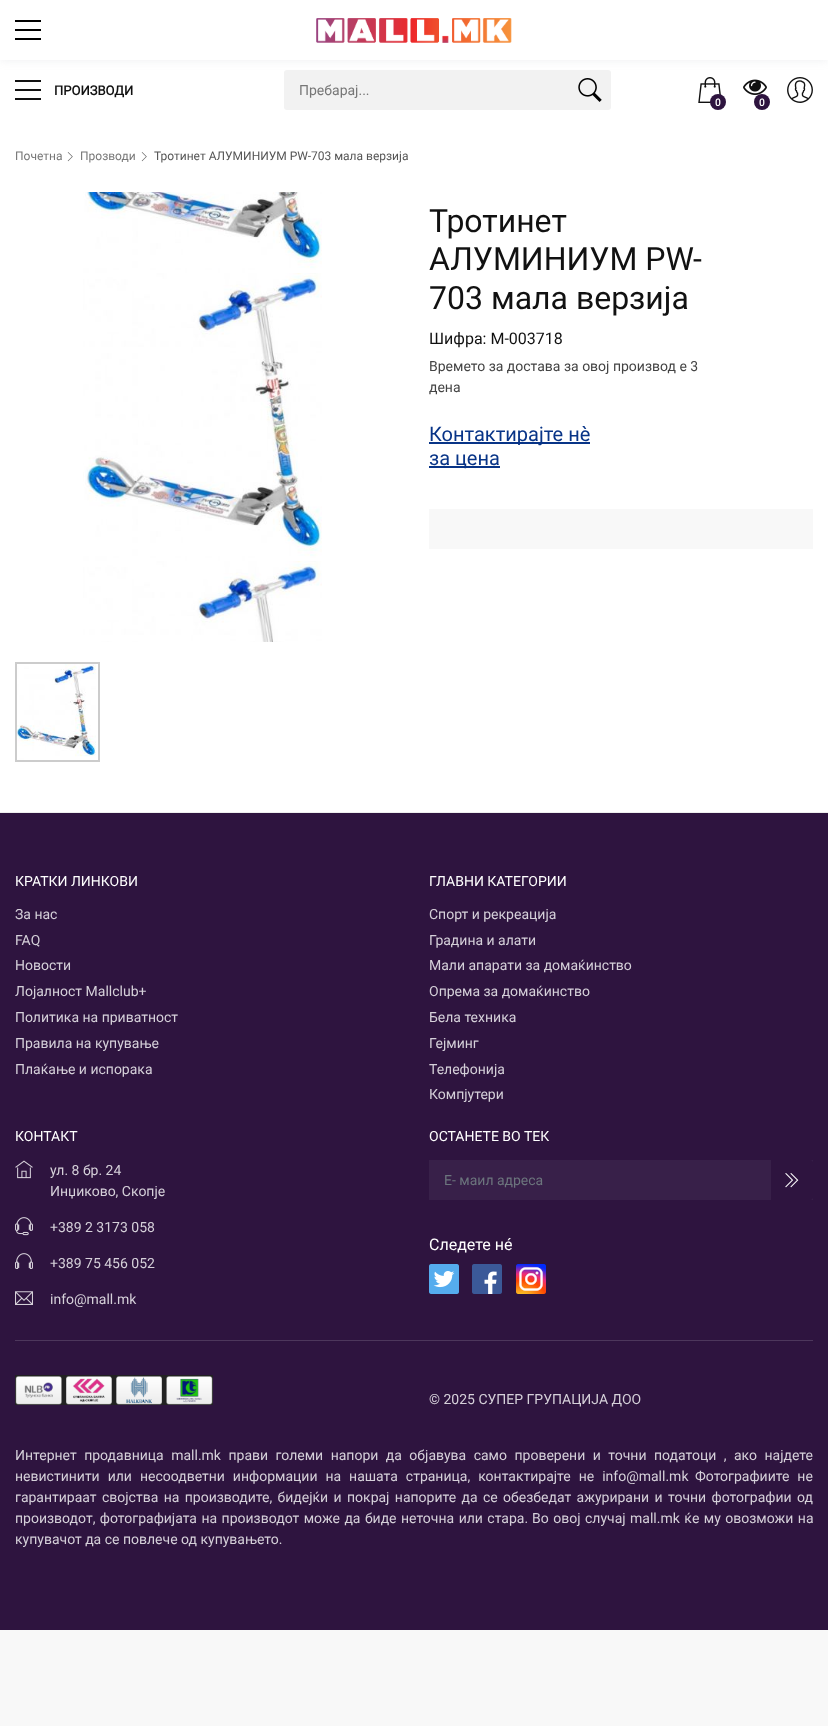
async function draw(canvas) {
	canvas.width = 828;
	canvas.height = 1726;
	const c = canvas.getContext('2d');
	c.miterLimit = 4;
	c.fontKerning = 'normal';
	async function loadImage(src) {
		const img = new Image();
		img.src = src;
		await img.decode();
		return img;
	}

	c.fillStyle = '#f8f8f8';
	c.fillRect(0, 0, 828, 1726);
	c.fillStyle = '#fff';
	c.fillRect(0, 60, 828, 752);
	c.fillStyle = '#f2f2f2';
	c.beginPath();
	c.roundRect(284, 70, 327, 40, 3);
	c.fill();
	c.fillStyle = '#9aa1ab2e';
	c.filter = 'blur(5px)';
	c.beginPath();
	c.rect(0, 0, 828, 60);
	c.fill();
	c.filter = 'none';
	for (const [x, y, w, h, color] of [
		[0, 0, 828, 60, '#fff'],
		[15, 29, 26, 2, '#000'],
		[15, 20, 26, 2, '#000'],
		[15, 38, 26, 2, '#000'],
	]) {
		c.fillStyle = color;
		c.fillRect(x, y, w, h);
	}
	c.drawImage(await loadImage('img1.png'), 316, 18, 196, 25);
	for (const [x, y, w, h, color] of [
		[15, 89, 26, 2, '#111'],
		[15, 80, 26, 2, '#111'],
		[15, 98, 26, 2, '#111'],
	]) {
		c.fillStyle = color;
		c.fillRect(x, y, w, h);
	}
	c.font = 'bold 13px Roboto';
	c.fillText('ПРОИЗВОДИ', 54, 95);
	c.font = '14px Roboto';
	c.fillStyle = '#777';
	c.fillText('Пребарај...', 299, 95);
	c.drawImage(await loadImage('img2.png'), 578, 78, 24, 24);
	c.drawImage(await loadImage('img3.png'), 698, 77, 23, 26);
	c.fillStyle = '#2e143f';
	c.beginPath();
	c.arc(718, 102, 8, 0, 2 * Math.PI);
	c.fill();
	c.font = 'bold 10px Roboto';
	c.fillStyle = '#fff';
	c.fillText('0', 715, 106);
	c.drawImage(await loadImage('img4.png'), 743, 79, 24, 16);
	c.fillStyle = '#2e143f';
	c.beginPath();
	c.arc(762, 102, 8, 0, 2 * Math.PI);
	c.fill();
	c.fillStyle = '#fff';
	c.fillText('0', 759, 106);
	c.drawImage(await loadImage('img5.png'), 787, 77, 26, 26);
	c.fillStyle = '#ededed';
	c.fillRect(0, 812, 828, 1);
	c.font = '12px Roboto';
	c.fillStyle = '#777';
	c.fillText('Почетна', 15, 160);
	c.drawImage(await loadImage('img6.png'), 67, 152, 6, 10);
	c.fillText('Прозводи', 80, 160);
	c.drawImage(await loadImage('img6.png'), 141, 152, 6, 10);
	c.fillStyle = '#555';
	c.fillText('Тротинет АЛУМИНИУМ PW-703 мала верзија', 154, 160);
	c.drawImage(await loadImage('img7.png'), 83, 192, 239, 450);
	c.drawImage(await loadImage('img8.png'), 17, 664, 79, 96);
	c.strokeStyle = '#ccc';
	c.lineWidth = 2;
	c.strokeRect(16, 663, 83, 98);
	c.font = '32px Roboto';
	c.fillStyle = '#111';
	for (const [text, x, y] of [
		['Тротинет', 429, 232],
		['АЛУМИНИУМ PW-', 429, 270],
		['703 мала верзија', 429, 309],
	]) {
		c.fillText(text, x, y);
	}
	c.font = '16px Roboto';
	c.fillText('Шифра: M-003718', 429, 344);
	c.font = '14px Roboto';
	c.fillStyle = '#444';
	c.fillText('Времето за достава за овој производ е 3', 429, 371);
	c.fillText('дена', 429, 392);
	c.fillStyle = '#083487';
	c.fillRect(429, 442, 161, 2);
	c.font = '20px Roboto';
	c.fillText('Контактирајте нè', 429, 441);
	c.fillRect(429, 466, 71, 2);
	c.fillText('за цена', 429, 465);
	c.fillStyle = '#f8f8f8';
	c.fillRect(429, 509, 384, 40);
	c.fillStyle = '#2e143f';
	c.fillRect(0, 813, 828, 817);
	c.font = '14px Roboto';
	c.fillStyle = '#fff';
	c.fillText('КРАТКИ ЛИНКОВИ', 15, 886);
	c.fillStyle = '#d5d0d9';
	for (const [text, x, y] of [
		['За нас', 15, 919],
		['FAQ', 15, 945],
		['Новости', 15, 970],
		['Лојалност Mallclub+', 15, 996],
		['Политика на приватност', 15, 1022],
		['Правила на купување', 15, 1048],
		['Плаќање и испорака', 15, 1074],
	]) {
		c.fillText(text, x, y);
	}
	c.fillStyle = '#fff';
	c.fillText('ГЛАВНИ КАТЕГОРИИ', 429, 886);
	c.fillStyle = '#d5d0d9';
	for (const [text, x, y] of [
		['Спорт и рекреација', 429, 919],
		['Градина и алати', 429, 945],
		['Мали апарати за домаќинство', 429, 970],
		['Опрема за домаќинство', 429, 996],
		['Бела техника', 429, 1022],
		['Гејминг', 429, 1048],
		['Телефонија', 429, 1074],
		['Компјутери', 429, 1099],
	]) {
		c.fillText(text, x, y);
	}
	c.fillStyle = '#fff';
	c.fillText('КОНТАКТ', 15, 1141);
	c.drawImage(await loadImage('img9.png'), 15, 1160, 18, 19);
	c.fillStyle = '#d5d0d9';
	c.fillText('ул. 8 бр. 24', 50, 1175);
	c.fillText('Инџиково, Скопје', 50, 1196);
	c.drawImage(await loadImage('img10.png'), 15, 1217, 18, 19);
	c.fillText('+389 2 3173 058', 50, 1232);
	c.drawImage(await loadImage('img11.png'), 15, 1253, 18, 16);
	c.fillText('+389 75 456 052', 50, 1268);
	c.drawImage(await loadImage('img12.png'), 15, 1291, 18, 14);
	c.fillText('info@mall.mk', 50, 1304);
	c.fillStyle = '#fff';
	c.fillText('ОСТАНЕТЕ ВО ТЕК', 429, 1141);
	c.fillStyle = '#382049';
	c.fillRect(429, 1160, 384, 40);
	c.fillStyle = '#6c757d';
	c.fillText('Е- маил адреса', 444, 1185);
	c.fillStyle = '#2e143f';
	c.beginPath();
	c.roundRect(771, 1160, 42, 40, [0, 3, 3, 0]);
	c.fill();
	c.drawImage(await loadImage('img13.png'), 785, 1173, 14, 15);
	c.font = '16px Roboto';
	c.fillStyle = '#fff';
	c.fillText('Следете нé', 429, 1250);
	c.drawImage(await loadImage('img14.png'), 429, 1264, 30, 30);
	c.drawImage(await loadImage('img15.png'), 472, 1264, 30, 30);
	c.drawImage(await loadImage('img16.png'), 516, 1264, 30, 30);
	c.fillStyle = '#4d375c';
	c.fillRect(15, 1340, 798, 1);
	c.drawImage(await loadImage('img17.png'), 15, 1375, 198, 30);
	c.font = '14px Roboto';
	c.fillStyle = '#d5d0d9';
	c.fillText('© 2025 СУПЕР ГРУПАЦИЈА ДОО', 429, 1404);
	c.wordSpacing = '4px';
	c.fillText('Интернет продавница mall.mk прави големи напори да објавува само проверени и точни податоци , ако најдете', 15, 1460);
	c.wordSpacing = '4.5px';
	c.fillText('невистинити или несоодветни информации на нашата страница, контактирајте не info@mall.mk', 15, 1481);
	c.fillText('Фотографиите не', 695, 1481);
	c.wordSpacing = '1.9px';
	c.fillText('гарантираат својства на производите, бидејќи и покрај напорите да се обезбедат ажурирани и', 15, 1502);
	c.fillText('точни фотографии од', 668, 1502);
	c.wordSpacing = '1px';
	c.fillText('производот, фотографијата на производот може да биде неточна или стара.', 15, 1523);
	c.fillText('Во овој случај mall.mk ќе му овозможи на', 532, 1523);
	c.wordSpacing = '0px';
	c.fillText('купувачот да се повлече од купувањето.', 15, 1544);
}

draw(document.querySelector('canvas'));
